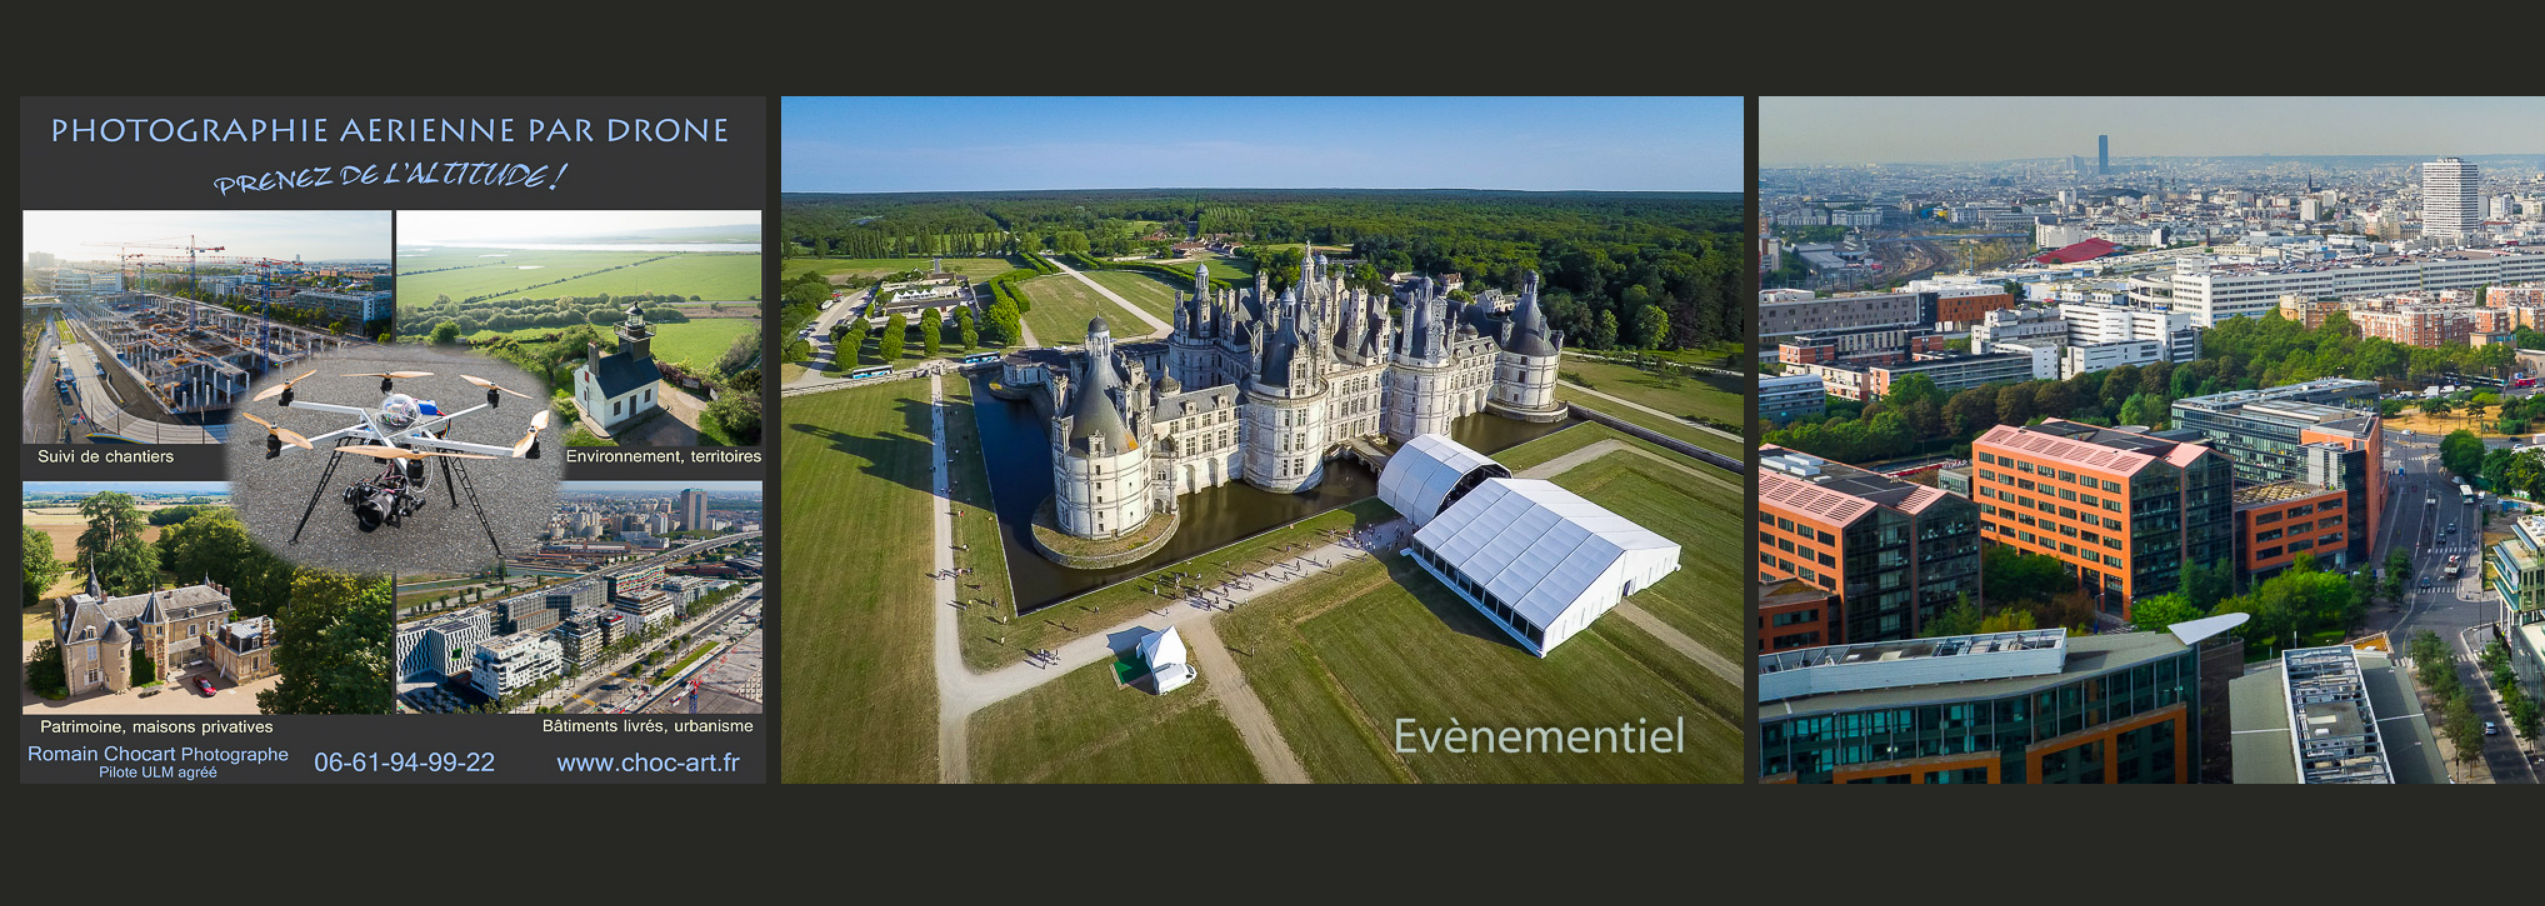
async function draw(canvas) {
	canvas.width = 2545;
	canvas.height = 906;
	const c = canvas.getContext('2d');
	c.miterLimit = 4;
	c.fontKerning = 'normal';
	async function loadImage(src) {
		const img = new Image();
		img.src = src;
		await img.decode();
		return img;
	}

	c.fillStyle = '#272823';
	c.fillRect(0, 0, 2545, 906);
	c.drawImage(await loadImage('img1.png'), 20, 96, 747, 688);
	c.drawImage(await loadImage('img2.png'), 781, 96, 963, 688);
	c.drawImage(await loadImage('img3.png'), 1758, 96, 787, 688);
}

draw(document.querySelector('canvas'));
